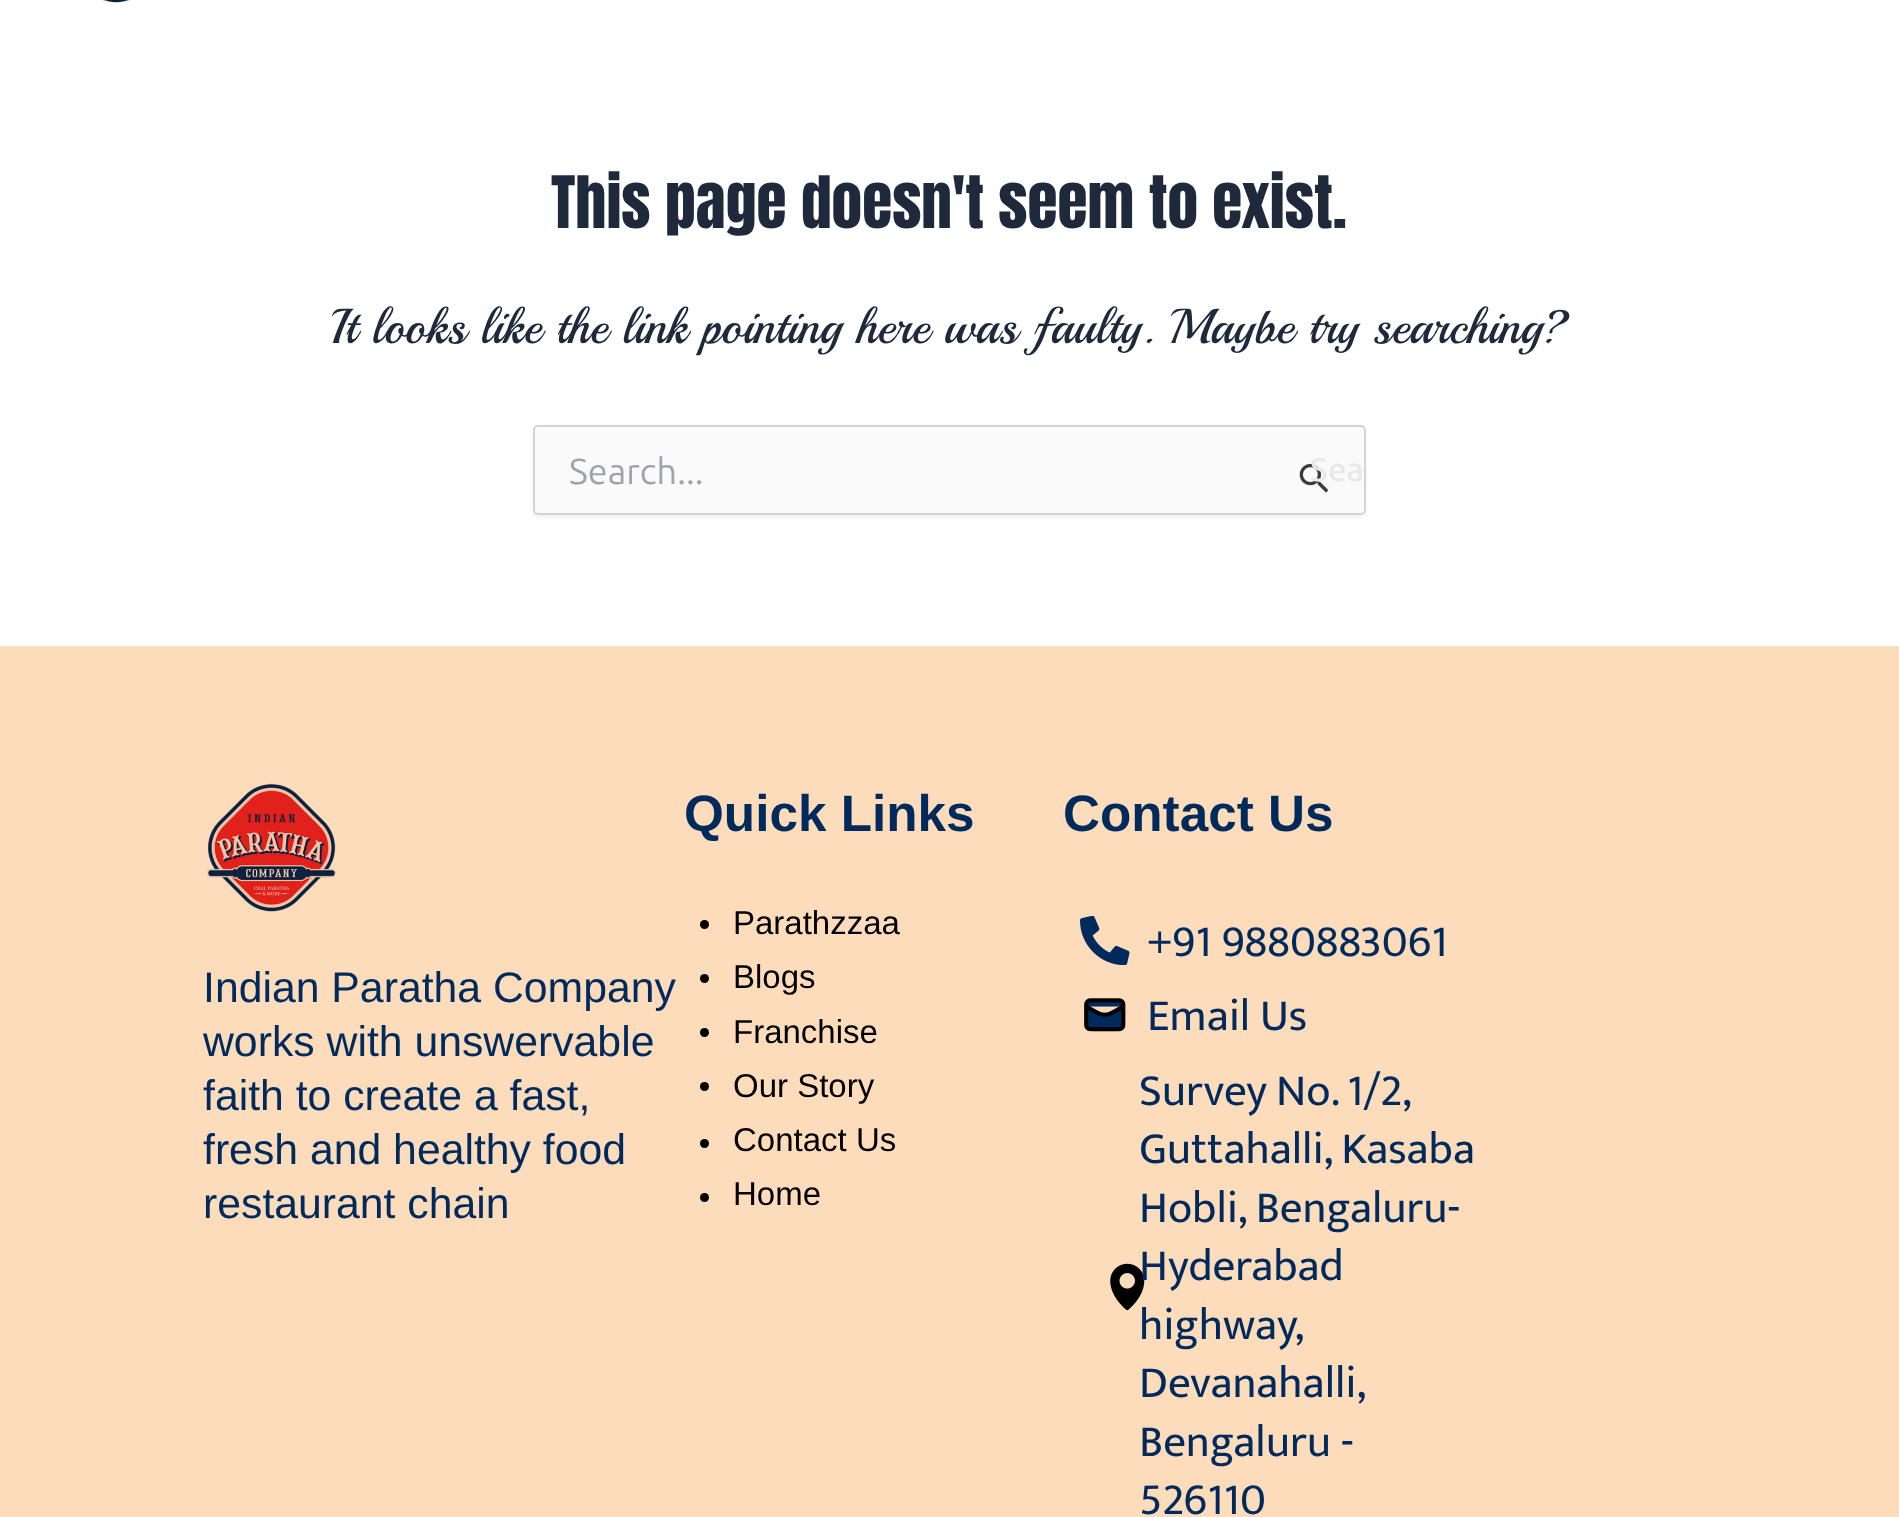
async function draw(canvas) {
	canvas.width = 1899;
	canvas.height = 1517;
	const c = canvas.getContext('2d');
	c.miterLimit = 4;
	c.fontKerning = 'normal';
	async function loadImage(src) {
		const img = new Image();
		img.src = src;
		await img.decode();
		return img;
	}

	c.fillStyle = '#fff';
	c.fillRect(0, 0, 1899, 1517);
	c.drawImage(await loadImage('img1.png'), 102, 0, 29, 3);
	c.font = '61.5px Anton';
	c.fillStyle = '#1e293b';
	c.fillText('This page doesn\'t seem to exist.', 551, 228);
	c.font = '49.25px Playball';
	c.fillText('It looks like the link pointing here was faulty. Maybe try searching?', 331, 343);
	c.fillStyle = '#0000000d';
	c.filter = 'blur(2px)';
	c.beginPath();
	c.roundRect(533, 428, 833, 90, 5);
	c.fill();
	c.filter = 'none';
	c.fillStyle = '#fafafa';
	c.beginPath();
	c.roundRect(534, 426, 831, 88, 4);
	c.fill();
	c.strokeStyle = '#d1d5db';
	c.lineWidth = 2;
	c.stroke();
	c.font = '36px Ubuntu';
	c.fillStyle = '#9ca3af';
	c.fillText('Search...', 569, 484);
	c.drawImage(await loadImage('img2.png'), 1299, 463, 29, 30);
	c.font = '500 33px Ubuntu';
	c.fillStyle = '#e8e8e8';
	c.fillText('Sea', 1310, 481);
	c.fillStyle = '#fddcbb';
	c.fillRect(0, 646, 1899, 871);
	c.drawImage(await loadImage('img3.png'), 207, 783, 130, 129);
	c.font = '42.75px Liberation Sans';
	c.fillStyle = '#002a5c';
	for (const [text, x, y] of [
		['Indian Paratha Company', 203, 1002],
		['works with unswervable', 203, 1056],
		['faith to create a fast,', 203, 1110],
		['fresh and healthy food', 203, 1164],
		['restaurant chain', 203, 1218],
	]) {
		c.fillText(text, x, y);
	}
	c.font = 'bold 51.25px Liberation Sans';
	c.fillText('Quick Links', 684, 831);
	c.fillStyle = '#000';
	c.beginPath();
	c.arc(704.5, 924.5, 4.5, 0, 2 * Math.PI);
	c.fill();
	c.font = '33px Liberation Sans';
	c.fillText('Parathzzaa', 733, 934);
	c.beginPath();
	c.arc(704.5, 978.5, 4.5, 0, 2 * Math.PI);
	c.fill();
	c.fillText('Blogs', 733, 988);
	c.beginPath();
	c.arc(704.5, 1032.5, 4.5, 0, 2 * Math.PI);
	c.fill();
	c.fillText('Franchise', 733, 1043);
	c.beginPath();
	c.arc(704.5, 1086.5, 4.5, 0, 2 * Math.PI);
	c.fill();
	c.fillText('Our Story', 733, 1097);
	c.beginPath();
	c.arc(704.5, 1143.5, 4.5, 0, 2 * Math.PI);
	c.fill();
	c.fillText('Contact Us', 733, 1151);
	c.beginPath();
	c.arc(704.5, 1197.5, 4.5, 0, 2 * Math.PI);
	c.fill();
	c.fillText('Home', 733, 1205);
	c.font = 'bold 51.25px Liberation Sans';
	c.fillStyle = '#002a5c';
	c.fillText('Contact Us', 1063, 831);
	c.drawImage(await loadImage('img4.png'), 1080, 916, 50, 49);
	c.font = '45px Mukta';
	c.fillText('+91 9880883061', 1147, 956);
	c.drawImage(await loadImage('img5.png'), 1084, 998, 42, 34);
	c.fillText('Email Us', 1147, 1030);
	c.drawImage(await loadImage('img6.png'), 1110, 1263, 35, 48);
	c.wordSpacing = '-1px';
	c.fillText('Survey No. 1/2,', 1139, 1105);
	c.wordSpacing = '0px';
	for (const [text, x, y] of [
		['Guttahalli, Kasaba', 1139, 1163],
		['Hobli, Bengaluru-', 1139, 1222],
		['Hyderabad', 1139, 1280],
		['highway,', 1139, 1339],
		['Devanahalli,', 1139, 1397],
		['Bengaluru -', 1139, 1456],
		['526110', 1139, 1514],
	]) {
		c.fillText(text, x, y);
	}
}

draw(document.querySelector('canvas'));
